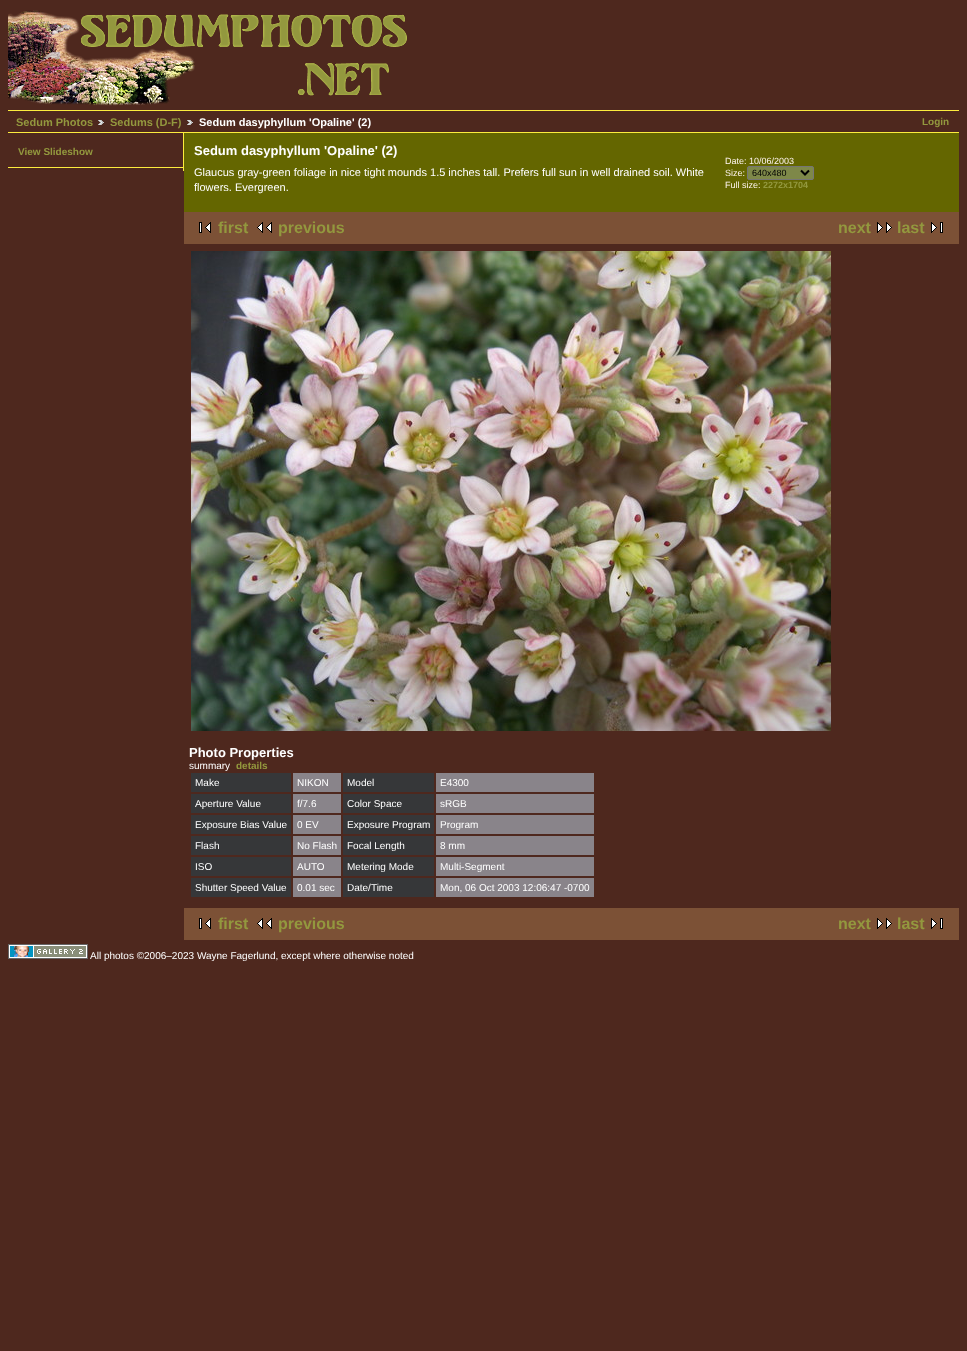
async function draw(canvas) {
	canvas.width = 967;
	canvas.height = 1351;
	const c = canvas.getContext('2d');
	c.miterLimit = 4;
	c.fontKerning = 'normal';
	async function loadImage(src) {
		const img = new Image();
		img.src = src;
		await img.decode();
		return img;
	}

	c.fillStyle = '#4e281e';
	c.fillRect(0, 0, 967, 1351);
	c.drawImage(await loadImage('img1.png'), 8, 10, 399, 96);
	c.fillStyle = '#fcec3e';
	c.fillRect(8, 110, 951, 1);
	c.fillRect(8, 132, 951, 1);
	c.font = 'bold 11px Liberation Sans';
	c.fillStyle = '#93983e';
	c.fillText('Sedum Photos', 16, 126);
	c.drawImage(await loadImage('img2.png'), 98, 120, 6, 5);
	c.fillText('Sedums (D-F)', 110, 126);
	c.drawImage(await loadImage('img2.png'), 187, 120, 6, 5);
	c.fillStyle = '#fff';
	c.fillText('Sedum dasyphyllum \'Opaline\' (2)', 199, 126);
	c.font = 'bold 10px Liberation Sans';
	c.fillStyle = '#93983e';
	c.fillText('Login', 922, 125);
	c.fillStyle = '#fcec3e';
	c.fillRect(183, 133, 1, 38);
	c.fillRect(8, 167, 175, 1);
	c.fillStyle = '#93983e';
	c.fillText('View Slideshow', 18, 155);
	c.fillStyle = '#646600';
	c.fillRect(184, 133, 775, 79);
	c.font = 'bold 13px Liberation Sans';
	c.fillStyle = '#fff';
	c.fillText('Sedum dasyphyllum \'Opaline\' (2)', 194, 155);
	c.font = '11px Liberation Sans';
	c.fillText('Glaucus gray-green foliage in nice tight mounds 1.5 inches tall. Prefers full sun in well drained soil. White', 194, 176);
	c.fillText('flowers. Evergreen.', 194, 191);
	c.font = '9px Liberation Sans';
	c.fillStyle = '#fff5ee';
	c.fillText('Date: 10/06/2003', 725, 164);
	c.fillText('Size:', 725, 176);
	c.fillStyle = '#7e8849';
	c.beginPath();
	c.roundRect(747.5, 166.5, 66, 13, 1.5);
	c.fill();
	c.strokeStyle = '#767676';
	c.stroke();
	c.beginPath();
	c.moveTo(801, 170.5);
	c.lineTo(805, 174.5);
	c.lineTo(809, 170.5);
	c.strokeStyle = '#000';
	c.lineWidth = 2;
	c.stroke();
	c.fillStyle = '#000';
	c.fillText('640x480', 752, 176);
	c.fillStyle = '#fff5ee';
	c.fillText('Full size:', 725, 188);
	c.font = 'bold 9px Liberation Sans';
	c.fillStyle = '#93983e';
	c.fillText('2272x1704', 763, 188);
	c.fillStyle = '#7c5136';
	c.fillRect(184, 212, 775, 32);
	c.drawImage(await loadImage('img3.png'), 199, 222, 12, 11);
	c.font = 'bold 16px Liberation Sans';
	c.fillStyle = '#93983e';
	c.fillText('first', 218, 233);
	c.drawImage(await loadImage('img4.png'), 257, 222, 15, 11);
	c.fillText('previous', 278, 233);
	c.fillText('next', 838, 233);
	c.drawImage(await loadImage('img5.png'), 877, 222, 15, 11);
	c.fillText('last', 897, 233);
	c.drawImage(await loadImage('img6.png'), 931, 222, 12, 11);
	c.drawImage(await loadImage('img7.png'), 191, 251, 640, 480);
	c.font = 'bold 13px Liberation Sans';
	c.fillStyle = '#fff';
	c.fillText('Photo Properties', 189, 757);
	c.font = '10px Liberation Sans';
	c.fillText('summary', 189, 769);
	c.font = 'bold 10px Liberation Sans';
	c.fillStyle = '#93983e';
	c.fillText('details', 236, 769);
	c.fillStyle = '#363739';
	c.fillRect(191, 773, 100, 19);
	c.font = '10px Liberation Sans';
	c.fillStyle = '#fff';
	c.fillText('Make', 195, 786);
	c.fillStyle = '#89848a';
	c.fillRect(293, 773, 48, 19);
	c.fillStyle = '#fff';
	c.fillText('NIKON', 297, 786);
	c.fillStyle = '#363739';
	c.fillRect(343, 773, 91, 19);
	c.fillStyle = '#fff';
	c.fillText('Model', 347, 786);
	c.fillStyle = '#89848a';
	c.fillRect(436, 773, 158, 19);
	c.fillStyle = '#fff';
	c.fillText('E4300', 440, 786);
	c.fillStyle = '#363739';
	c.fillRect(191, 794, 100, 19);
	c.fillStyle = '#fff';
	c.fillText('Aperture Value', 195, 807);
	c.fillStyle = '#89848a';
	c.fillRect(293, 794, 48, 19);
	c.fillStyle = '#fff';
	c.fillText('f/7.6', 297, 807);
	c.fillStyle = '#363739';
	c.fillRect(343, 794, 91, 19);
	c.fillStyle = '#fff';
	c.fillText('Color Space', 347, 807);
	c.fillStyle = '#89848a';
	c.fillRect(436, 794, 158, 19);
	c.fillStyle = '#fff';
	c.fillText('sRGB', 440, 807);
	c.fillStyle = '#363739';
	c.fillRect(191, 815, 100, 19);
	c.fillStyle = '#fff';
	c.fillText('Exposure Bias Value', 195, 828);
	c.fillStyle = '#89848a';
	c.fillRect(293, 815, 48, 19);
	c.fillStyle = '#fff';
	c.fillText('0 EV', 297, 828);
	c.fillStyle = '#363739';
	c.fillRect(343, 815, 91, 19);
	c.fillStyle = '#fff';
	c.fillText('Exposure Program', 347, 828);
	c.fillStyle = '#89848a';
	c.fillRect(436, 815, 158, 19);
	c.fillStyle = '#fff';
	c.fillText('Program', 440, 828);
	c.fillStyle = '#363739';
	c.fillRect(191, 836, 100, 19);
	c.fillStyle = '#fff';
	c.fillText('Flash', 195, 849);
	c.fillStyle = '#89848a';
	c.fillRect(293, 836, 48, 19);
	c.fillStyle = '#fff';
	c.fillText('No Flash', 297, 849);
	c.fillStyle = '#363739';
	c.fillRect(343, 836, 91, 19);
	c.fillStyle = '#fff';
	c.fillText('Focal Length', 347, 849);
	c.fillStyle = '#89848a';
	c.fillRect(436, 836, 158, 19);
	c.fillStyle = '#fff';
	c.fillText('8 mm', 440, 849);
	c.fillStyle = '#363739';
	c.fillRect(191, 857, 100, 19);
	c.fillStyle = '#fff';
	c.fillText('ISO', 195, 870);
	c.fillStyle = '#89848a';
	c.fillRect(293, 857, 48, 19);
	c.fillStyle = '#fff';
	c.fillText('AUTO', 297, 870);
	c.fillStyle = '#363739';
	c.fillRect(343, 857, 91, 19);
	c.fillStyle = '#fff';
	c.fillText('Metering Mode', 347, 870);
	c.fillStyle = '#89848a';
	c.fillRect(436, 857, 158, 19);
	c.fillStyle = '#fff';
	c.fillText('Multi-Segment', 440, 870);
	c.fillStyle = '#363739';
	c.fillRect(191, 878, 100, 19);
	c.fillStyle = '#fff';
	c.fillText('Shutter Speed Value', 195, 891);
	c.fillStyle = '#89848a';
	c.fillRect(293, 878, 48, 19);
	c.fillStyle = '#fff';
	c.fillText('0.01 sec', 297, 891);
	c.fillStyle = '#363739';
	c.fillRect(343, 878, 91, 19);
	c.fillStyle = '#fff';
	c.fillText('Date/Time', 347, 891);
	c.fillStyle = '#89848a';
	c.fillRect(436, 878, 158, 19);
	c.fillStyle = '#fff';
	c.fillText('Mon, 06 Oct 2003 12:06:47 -0700', 440, 891);
	c.fillStyle = '#7c5136';
	c.fillRect(184, 908, 775, 32);
	c.drawImage(await loadImage('img3.png'), 199, 918, 12, 11);
	c.font = 'bold 16px Liberation Sans';
	c.fillStyle = '#93983e';
	c.fillText('first', 218, 929);
	c.drawImage(await loadImage('img4.png'), 257, 918, 15, 11);
	c.fillText('previous', 278, 929);
	c.fillText('next', 838, 929);
	c.drawImage(await loadImage('img5.png'), 877, 918, 15, 11);
	c.fillText('last', 897, 929);
	c.drawImage(await loadImage('img6.png'), 931, 918, 12, 11);
	c.drawImage(await loadImage('img8.png'), 8, 944, 80, 15);
	c.font = '10px Liberation Sans';
	c.fillStyle = '#fff';
	c.fillText('All photos ©2006–2023 Wayne Fagerlund, except where otherwise noted', 90, 959);
}

draw(document.querySelector('canvas'));
